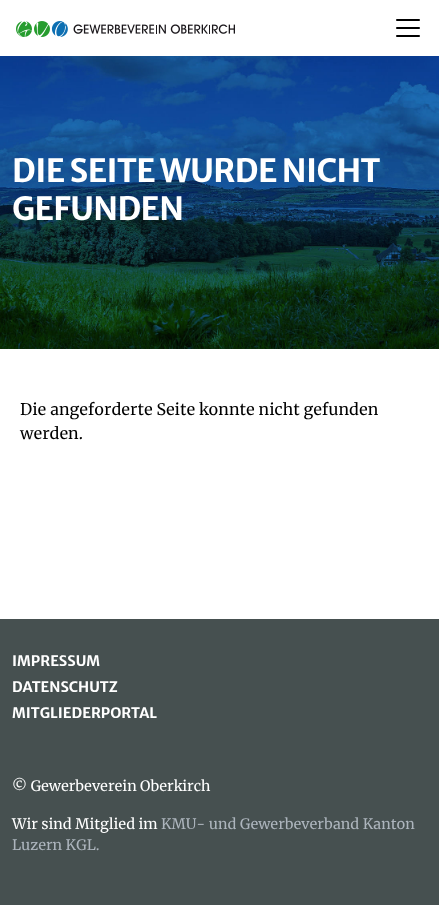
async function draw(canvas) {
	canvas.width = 439;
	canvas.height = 905;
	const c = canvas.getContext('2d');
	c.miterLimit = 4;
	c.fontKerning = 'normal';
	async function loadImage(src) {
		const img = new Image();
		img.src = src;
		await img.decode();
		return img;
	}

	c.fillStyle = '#fff';
	c.fillRect(0, 0, 439, 905);
	c.drawImage(await loadImage('img1.png'), 16, 21, 219, 16);
	c.drawImage(await loadImage('img2.png'), 396, 19, 24, 18);
	c.drawImage(await loadImage('img3.png'), 0, 56, 439, 293);
	c.letterSpacing = '-0.6px';
	c.font = 'bold 32px Merriweather Sans';
	c.fillText('DIE SEITE WURDE NICHT', 12, 182);
	c.fillText('GEFUNDEN', 12, 220);
	c.letterSpacing = '0px';
	c.font = '16px Merriweather';
	c.fillStyle = '#000';
	c.fillText('Die angeforderte Seite konnte nicht gefunden', 20, 415);
	c.fillText('werden.', 20, 439);
	c.fillStyle = '#465050';
	c.fillRect(0, 619, 439, 286);
	c.font = 'bold 14.4px Merriweather Sans';
	c.fillStyle = '#fff';
	for (const [text, x, y] of [
		['IMPRESSUM', 12, 666],
		['DATENSCHUTZ', 12, 692],
		['MITGLIEDERPORTAL', 12, 718],
	]) {
		c.fillText(text, x, y);
	}
	c.font = '14.4px Merriweather';
	c.fillText('© Gewerbeverein Oberkirch', 12, 791);
	c.fillText('Wir sind Mitglied im', 12, 829);
	c.fillStyle = '#adb5bd';
	c.fillText('KMU- und Gewerbeverband Kanton', 161, 829);
	c.fillText('Luzern KGL.', 12, 850);
}

draw(document.querySelector('canvas'));
